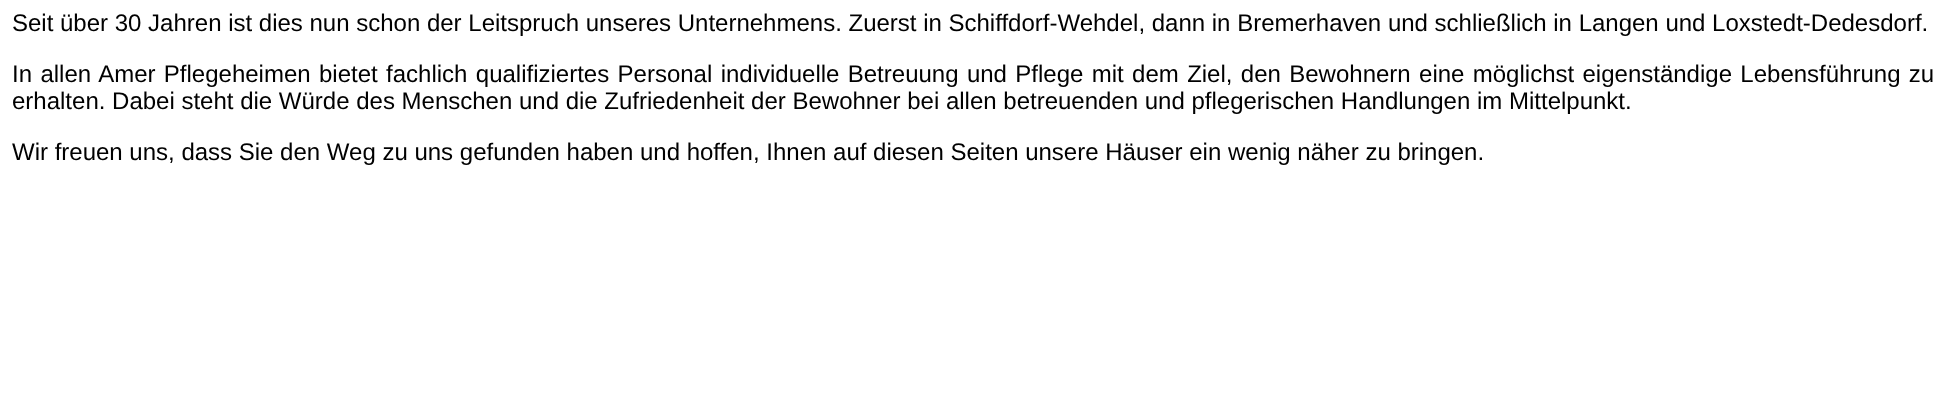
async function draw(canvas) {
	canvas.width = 1945;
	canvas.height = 410;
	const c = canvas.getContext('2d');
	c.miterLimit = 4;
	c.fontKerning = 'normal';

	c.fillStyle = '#fff';
	c.fillRect(0, 0, 1945, 410);
	c.font = '24px Liberation Sans';
	c.fillStyle = '#000';
	c.fillText('Seit über 30 Jahren ist dies nun schon der Leitspruch unseres Unternehmens. Zuerst in Schiffdorf-Wehdel, dann in Bremerhaven und schließlich in Langen und Loxstedt-Dedesdorf.', 12, 31);
	c.wordSpacing = '1.7px';
	c.fillText('In allen Amer Pflegeheimen bietet fachlich qualifiziertes Personal individuelle Betreuung und Pflege mit dem Ziel, den Bewohnern eine möglichst eigenständige Lebensführung zu', 12, 82);
	c.wordSpacing = '0px';
	c.fillText('erhalten. Dabei steht die Würde des Menschen und die Zufriedenheit der Bewohner bei allen betreuenden und pflegerischen Handlungen im Mittelpunkt.', 12, 109);
	c.fillText('Wir freuen uns, dass Sie den Weg zu uns gefunden haben und hoffen, Ihnen auf diesen Seiten unsere Häuser ein wenig näher zu bringen.', 12, 160);
}

draw(document.querySelector('canvas'));
